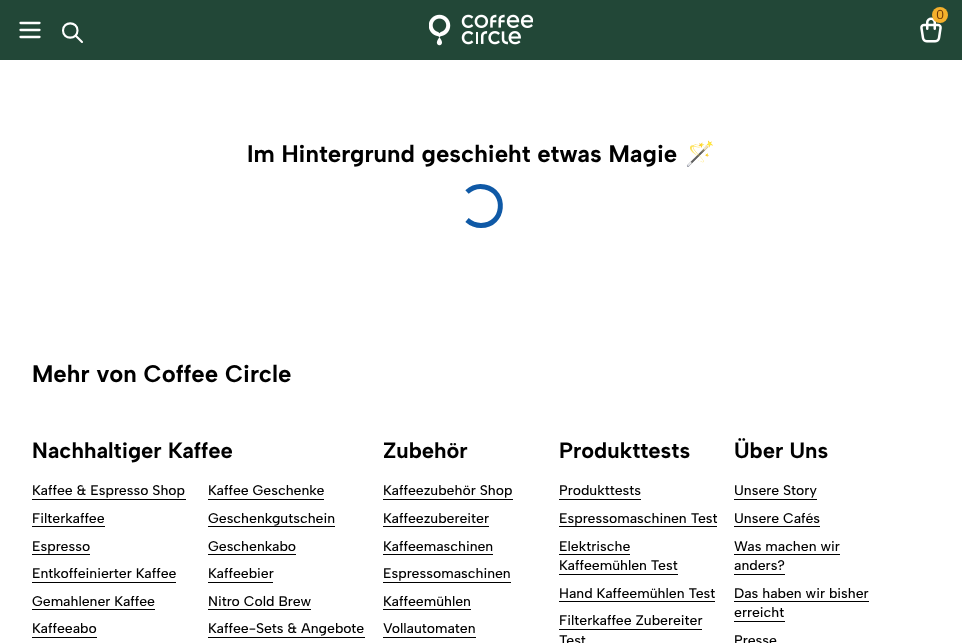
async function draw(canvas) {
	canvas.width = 962;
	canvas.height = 643;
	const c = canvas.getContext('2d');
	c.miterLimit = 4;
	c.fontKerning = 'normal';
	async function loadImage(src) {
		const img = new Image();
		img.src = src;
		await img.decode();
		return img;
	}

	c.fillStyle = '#fff';
	c.fillRect(0, 0, 962, 643);
	c.fillStyle = '#224737';
	c.fillRect(0, 0, 962, 60);
	c.beginPath();
	c.moveTo(20.5, 23);
	c.lineTo(39.5, 23);
	c.moveTo(20.5, 30);
	c.lineTo(39.5, 30);
	c.moveTo(20.5, 37);
	c.lineTo(39.5, 37);
	c.strokeStyle = '#fff';
	c.lineWidth = 2.3;
	c.lineCap = 'round';
	c.lineJoin = 'round';
	c.stroke();
	c.beginPath();
	c.moveTo(63, 30.5);
	c.bezierCurveTo(63, 40, 77.5, 40, 77.5, 30.5);
	c.bezierCurveTo(77.5, 21, 63, 21, 63, 30.5);
	c.moveTo(82, 42);
	c.lineTo(75.5, 35.5);
	c.lineWidth = 2.1;
	c.stroke();
	c.drawImage(await loadImage('img1.png'), 429, 14, 104, 32);
	c.drawImage(await loadImage('img2.png'), 920, 17, 22, 26);
	c.fillStyle = '#f4b02c';
	c.beginPath();
	c.arc(940, 15, 8, 0, 2 * Math.PI);
	c.fill();
	c.font = '13px Albert Sans';
	c.fillStyle = '#693306';
	c.fillText('0', 936, 19);
	c.font = 'bold 24px Albert Sans';
	c.fillStyle = '#000';
	c.fillText('Im Hintergrund geschieht etwas Magie', 247, 162);
	c.font = 'bold 24px Noto Color Emoji';
	c.fillText('🪄', 685, 162);
	c.beginPath();
	c.moveTo(467, 192);
	c.bezierCurveTo(472, 187.5, 478.5, 185.5, 485, 187);
	c.bezierCurveTo(507.5, 191.5, 504.5, 225.5, 481, 225.5);
	c.bezierCurveTo(476, 225.5, 471, 223.5, 467, 220);
	c.strokeStyle = '#0f59a6';
	c.lineWidth = 5;
	c.lineCap = 'butt';
	c.lineJoin = 'miter';
	c.stroke();
	c.font = 'bold 24px Albert Sans';
	c.fillText('Mehr von Coffee Circle', 32, 382);
	c.font = 'bold 22px Albert Sans';
	c.fillText('Nachhaltiger Kaffee', 32, 458);
	c.font = '500 14px Albert Sans';
	c.fillText('Kaffee & Espresso Shop', 32, 495);
	c.fillRect(32, 499, 154, 1);
	c.fillText('Filterkaffee', 32, 523);
	c.fillRect(32, 526, 73, 1);
	c.fillText('Espresso', 32, 551);
	c.fillRect(32, 554, 58, 1);
	c.fillText('Entkoffeinierter Kaffee', 32, 578);
	c.fillRect(32, 582, 144, 1);
	c.fillText('Gemahlener Kaffee', 32, 606);
	c.fillRect(32, 609, 123, 1);
	c.fillText('Kaffeeabo', 32, 633);
	c.fillRect(32, 637, 65, 1);
	c.fillText('Kaffee Geschenke', 208, 495);
	c.fillRect(208, 499, 116, 1);
	c.fillText('Geschenkgutschein', 208, 523);
	c.fillRect(208, 526, 127, 1);
	c.fillText('Geschenkabo', 208, 551);
	c.fillRect(208, 554, 88, 1);
	c.fillText('Kaffeebier', 208, 578);
	c.fillRect(208, 582, 65, 1);
	c.fillText('Nitro Cold Brew', 208, 606);
	c.fillRect(208, 609, 103, 1);
	c.fillText('Kaffee-Sets & Angebote', 208, 633);
	c.fillRect(208, 637, 157, 1);
	c.font = 'bold 22px Albert Sans';
	c.fillText('Zubehör', 383, 458);
	c.font = '500 14px Albert Sans';
	c.fillText('Kaffeezubehör Shop', 383, 495);
	c.fillRect(383, 499, 130, 1);
	c.fillText('Kaffeezubereiter', 383, 523);
	c.fillRect(383, 526, 106, 1);
	c.fillText('Kaffeemaschinen', 383, 551);
	c.fillRect(383, 554, 110, 1);
	c.fillText('Espressomaschinen', 383, 578);
	c.fillRect(383, 582, 128, 1);
	c.fillText('Kaffeemühlen', 383, 606);
	c.fillRect(383, 609, 88, 1);
	c.fillText('Vollautomaten', 383, 633);
	c.fillRect(383, 637, 93, 1);
	c.font = 'bold 22px Albert Sans';
	c.fillText('Produkttests', 559, 458);
	c.font = '500 14px Albert Sans';
	c.fillText('Produkttests', 559, 495);
	c.fillRect(559, 499, 82, 1);
	c.fillText('Espressomaschinen Test', 559, 523);
	c.fillRect(559, 526, 158, 1);
	c.fillText('Elektrische', 559, 551);
	c.fillRect(559, 554, 71, 1);
	c.fillText('Kaffeemühlen Test', 559, 570);
	c.fillRect(559, 574, 119, 1);
	c.fillText('Hand Kaffeemühlen Test', 559, 598);
	c.fillRect(559, 601, 156, 1);
	c.fillText('Filterkaffee Zubereiter', 559, 625);
	c.fillRect(559, 629, 143, 1);
	c.fillText('Test', 559, 645);
	c.font = 'bold 22px Albert Sans';
	c.fillText('Über Uns', 734, 458);
	c.font = '500 14px Albert Sans';
	c.fillText('Unsere Story', 734, 495);
	c.fillRect(734, 499, 83, 1);
	c.fillText('Unsere Cafés', 734, 523);
	c.fillRect(734, 526, 86, 1);
	c.fillText('Was machen wir', 734, 551);
	c.fillRect(734, 554, 106, 1);
	c.fillText('anders?', 734, 570);
	c.fillRect(734, 574, 51, 1);
	c.fillText('Das haben wir bisher', 734, 598);
	c.fillRect(734, 601, 135, 1);
	c.fillText('erreicht', 734, 617);
	c.fillRect(734, 621, 51, 1);
	c.fillText('Presse', 734, 645);
}

draw(document.querySelector('canvas'));
